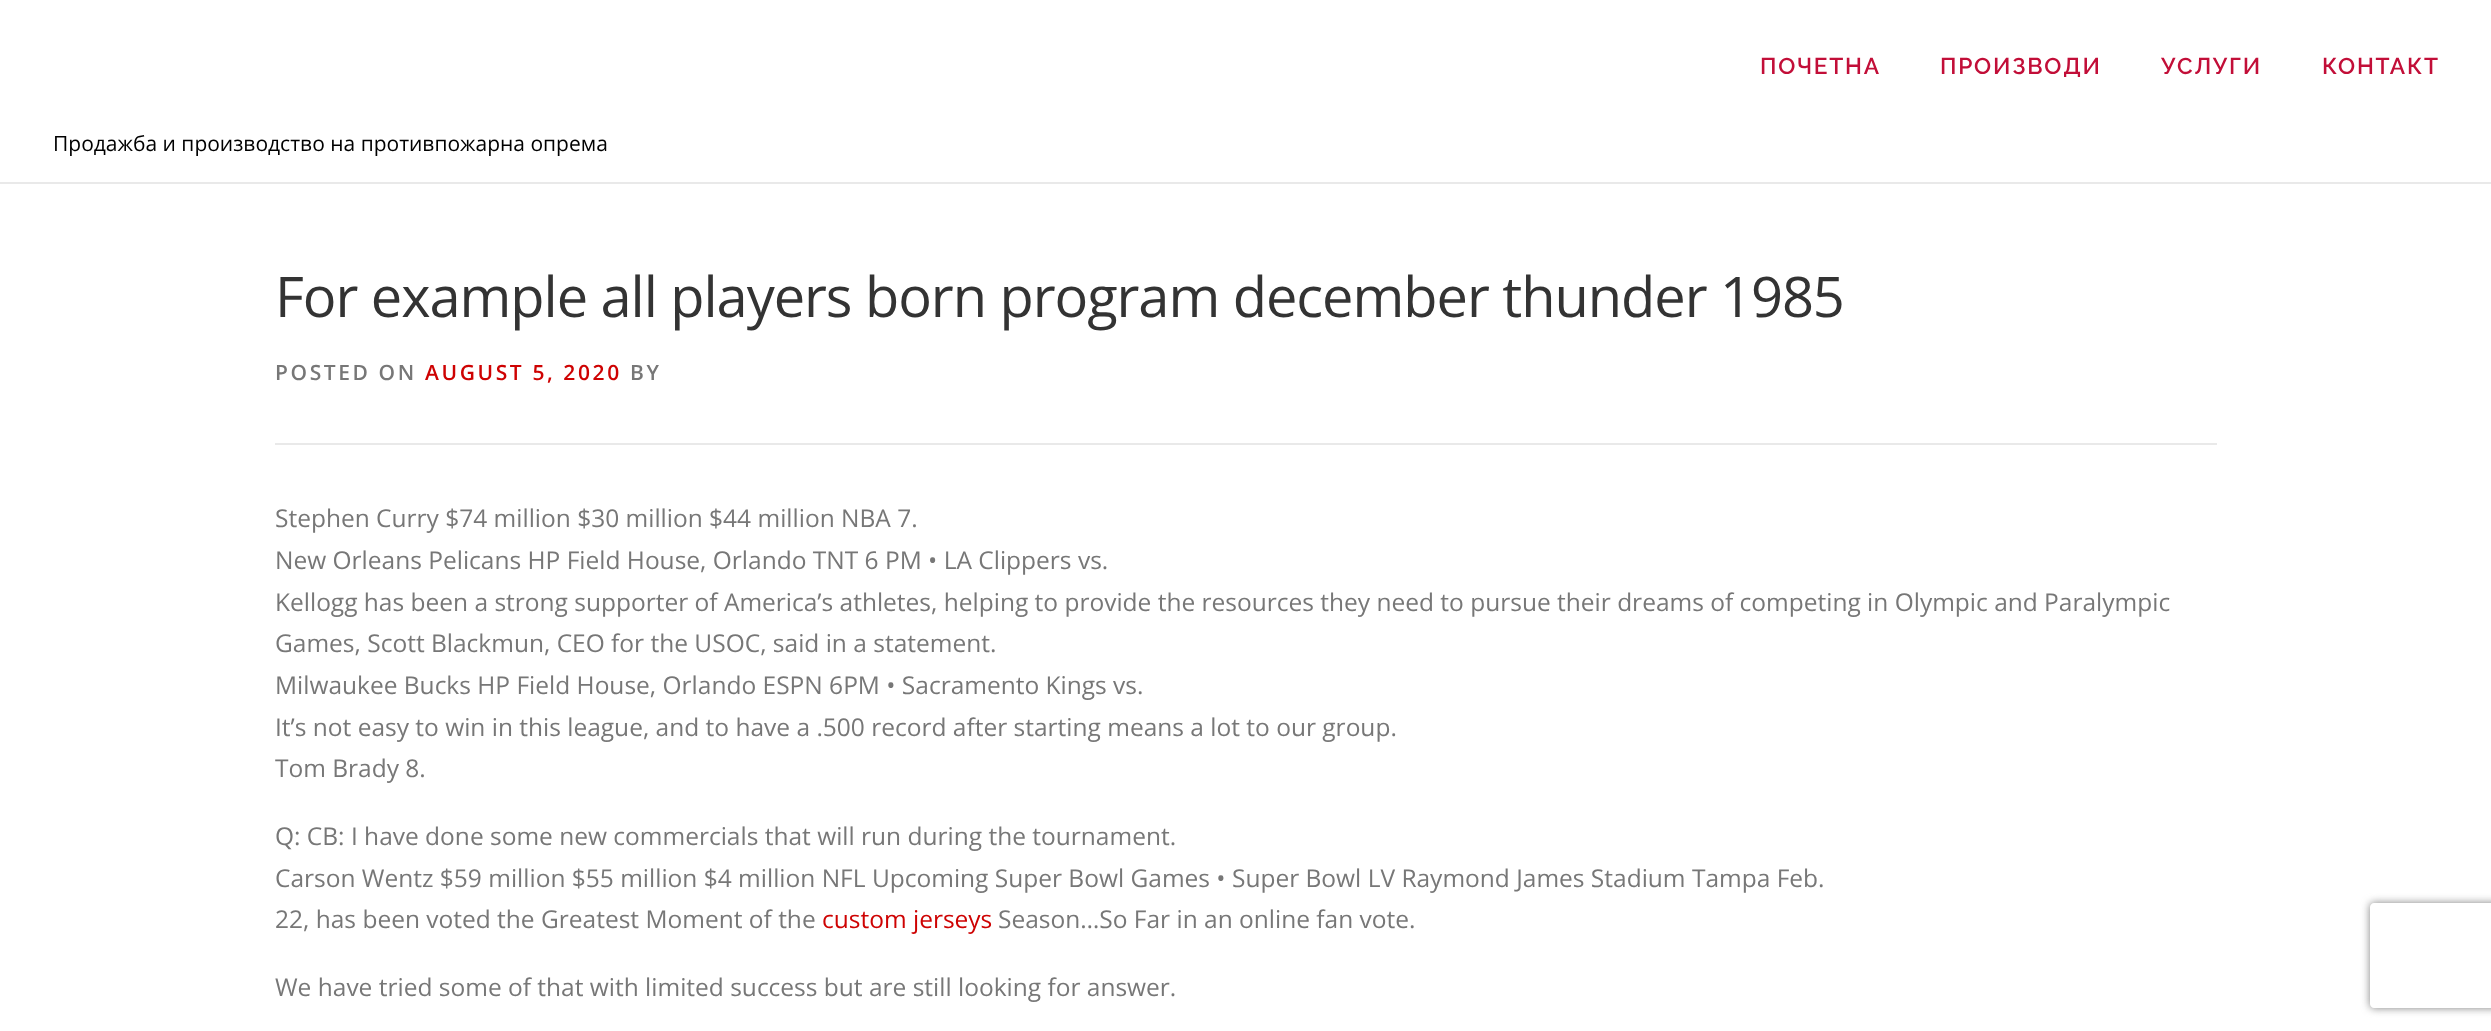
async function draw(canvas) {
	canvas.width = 2491;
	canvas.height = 1031;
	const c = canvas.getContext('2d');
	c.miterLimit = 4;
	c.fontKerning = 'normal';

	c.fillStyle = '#fff';
	c.fillRect(0, 0, 2491, 1031);
	c.letterSpacing = '1.75px';
	c.font = '600 22.75px Raleway';
	c.fillStyle = '#c20e38';
	for (const [text, x, y] of [
		['ПОЧЕТНА', 1760, 74],
		['ПРОИЗВОДИ', 1940, 74],
		['УСЛУГИ', 2161, 74],
		['КОНТАКТ', 2322, 74],
	]) {
		c.fillText(text, x, y);
	}
	c.letterSpacing = '0px';
	c.font = '21px Open Sans';
	c.fillStyle = '#000';
	c.fillText('Продажба и производство на противпожарна опрема', 53, 151);
	c.fillStyle = '#e9e9e9';
	c.fillRect(0, 182, 2491, 2);
	c.letterSpacing = '-1.05px';
	c.font = '56px Open Sans';
	c.fillStyle = '#333';
	c.fillText('For example all players born program december thunder 1985', 275, 317);
	c.fillStyle = '#e9e9e9';
	c.fillRect(275, 443, 1942, 2);
	c.letterSpacing = '2.6px';
	c.font = '600 21px Open Sans';
	c.fillStyle = '#777';
	c.fillText('POSTED ON', 275, 380);
	c.fillStyle = '#ce0202';
	c.fillText('AUGUST 5, 2020', 425, 380);
	c.fillStyle = '#777';
	c.fillText('BY', 630, 380);
	c.letterSpacing = '0px';
	c.font = '24.5px Open Sans';
	for (const [text, x, y] of [
		['Stephen Curry $74 million $30 million $44 million NBA 7.', 275, 527],
		['New Orleans Pelicans HP Field House, Orlando TNT 6 PM • LA Clippers vs.', 275, 569],
		['Kellogg has been a strong supporter of America’s athletes, helping to provide the resources they need to pursue their dreams of competing in Olympic and Paralympic', 275, 611],
		['Games, Scott Blackmun, CEO for the USOC, said in a statement.', 275, 652],
		['Milwaukee Bucks HP Field House, Orlando ESPN 6PM • Sacramento Kings vs.', 275, 694],
		['It’s not easy to win in this league, and to have a .500 record after starting means a lot to our group.', 275, 736],
		['Tom Brady 8.', 275, 777],
		['Q: CB: I have done some new commercials that will run during the tournament.', 275, 845],
		['Carson Wentz $59 million $55 million $4 million NFL Upcoming Super Bowl Games • Super Bowl LV Raymond James Stadium Tampa Feb.', 275, 887],
		['22, has been voted the Greatest Moment of the', 275, 928],
	]) {
		c.fillText(text, x, y);
	}
	c.fillStyle = '#ce0202';
	c.fillText('custom jerseys', 822, 928);
	c.fillStyle = '#777';
	c.fillText('Season…So Far in an online fan vote.', 998, 928);
	c.fillText('We have tried some of that with limited success but are still looking for answer.', 275, 996);
	c.save();
	c.beginPath();
	c.moveTo(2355, 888);
	c.lineTo(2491, 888);
	c.lineTo(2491, 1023);
	c.lineTo(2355, 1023);
	c.closePath();
	c.moveTo(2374, 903);
	c.lineTo(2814, 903);
	c.bezierCurveTo(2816, 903, 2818, 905, 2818, 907);
	c.lineTo(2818, 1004);
	c.bezierCurveTo(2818, 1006, 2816, 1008, 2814, 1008);
	c.lineTo(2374, 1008);
	c.bezierCurveTo(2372, 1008, 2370, 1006, 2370, 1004);
	c.lineTo(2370, 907);
	c.bezierCurveTo(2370, 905, 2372, 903, 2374, 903);
	c.closePath();
	c.clip('evenodd');
	c.fillStyle = '#808080';
	c.filter = 'blur(4.5px)';
	c.beginPath();
	c.roundRect(2370, 903, 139, 105, 4);
	c.fill();
	c.filter = 'none';
	c.restore();
}

draw(document.querySelector('canvas'));
